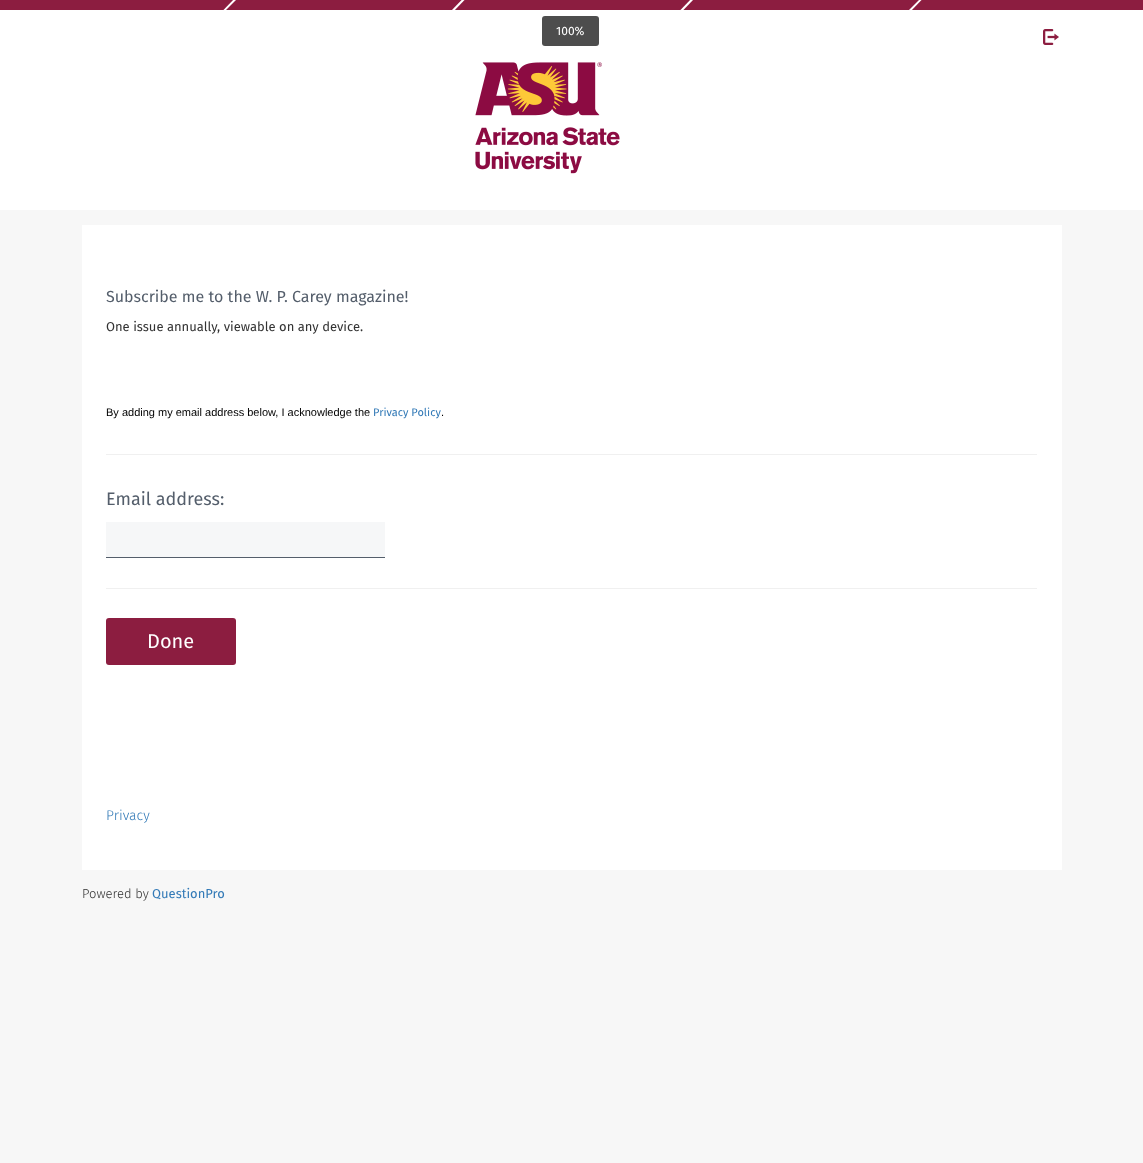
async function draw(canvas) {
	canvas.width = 1143;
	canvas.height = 1163;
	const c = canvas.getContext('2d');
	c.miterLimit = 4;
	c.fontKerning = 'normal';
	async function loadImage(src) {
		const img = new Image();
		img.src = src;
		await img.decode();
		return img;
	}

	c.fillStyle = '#f7f7f7';
	c.fillRect(0, 0, 1143, 1163);
	c.fillStyle = '#fff';
	c.fillRect(0, 10, 1143, 200);
	c.fillStyle = '#4d4d4d';
	c.beginPath();
	c.roundRect(542, 16, 57, 30, 3);
	c.fill();
	c.font = '12px Fira Sans';
	c.fillStyle = '#fff';
	c.fillText('100%', 556, 35);
	c.fillStyle = '#8c1d40';
	c.fillRect(0, 0, 1143, 10);
	c.save();
	c.beginPath();
	c.rect(0, 0, 1143, 10);
	c.clip();
	c.fillStyle = '#fff';
	c.beginPath();
	c.moveTo(236, -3);
	c.lineTo(237.5, -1.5);
	c.lineTo(223, 13);
	c.lineTo(222, 11.5);
	c.closePath();
	c.fill();
	c.beginPath();
	c.moveTo(464.5, -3);
	c.lineTo(466, -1.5);
	c.lineTo(452, 13);
	c.lineTo(450.5, 11.5);
	c.closePath();
	c.fill();
	c.beginPath();
	c.moveTo(693, -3);
	c.lineTo(694.5, -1.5);
	c.lineTo(680.5, 13);
	c.lineTo(679, 11.5);
	c.closePath();
	c.fill();
	c.beginPath();
	c.moveTo(922, -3);
	c.lineTo(923, -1.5);
	c.lineTo(909, 13);
	c.lineTo(907.5, 11.5);
	c.closePath();
	c.fill();
	c.restore();
	c.drawImage(await loadImage('img1.png'), 1043, 29, 16, 16);
	c.drawImage(await loadImage('img2.png'), 475, 62, 145, 112);
	c.fillStyle = '#fff';
	c.fillRect(82, 225, 980, 645);
	c.fillStyle = '#f0f0f0';
	c.fillRect(106, 454, 931, 1);
	c.font = '16px Fira Sans';
	c.fillStyle = '#545e6b';
	c.fillText('Subscribe me to the W. P. Carey magazine!', 106, 302);
	c.font = '13px Fira Sans';
	c.fillStyle = '#333';
	c.fillText('One issue annually, viewable on any device.', 106, 331);
	c.font = '11px Liberation Sans';
	c.fillStyle = '#000';
	c.fillText('By adding my email address below, I acknowledge the', 106, 416);
	c.font = '11px Fira Sans';
	c.fillStyle = '#337ab7';
	c.fillText('Privacy Policy', 373, 416);
	c.font = '11px Liberation Sans';
	c.fillStyle = '#000';
	c.fillText('.', 441, 416);
	c.fillStyle = '#f0f0f0';
	c.fillRect(106, 588, 931, 1);
	c.font = '18px Fira Sans';
	c.fillStyle = '#545e6b';
	c.fillText('Email address:', 106, 505);
	c.fillStyle = '#f6f7f8';
	c.fillRect(106, 522, 279, 35);
	c.fillStyle = '#545e6b';
	c.fillRect(106, 557, 279, 1);
	c.fillStyle = '#8c1d40';
	c.beginPath();
	c.roundRect(106, 618, 130, 47, 3);
	c.fill();
	c.font = '20px Fira Sans';
	c.fillStyle = '#fff';
	c.fillText('Done', 147, 648);
	c.font = '300 14px Fira Sans';
	c.fillStyle = '#337ab7';
	c.fillText('Privacy', 106, 820);
	c.font = '300 13px Fira Sans';
	c.fillStyle = '#333';
	c.fillText('Powered by', 82, 898);
	c.font = '13px Fira Sans';
	c.fillStyle = '#337ab7';
	c.fillText('QuestionPro', 152, 898);
}

draw(document.querySelector('canvas'));
